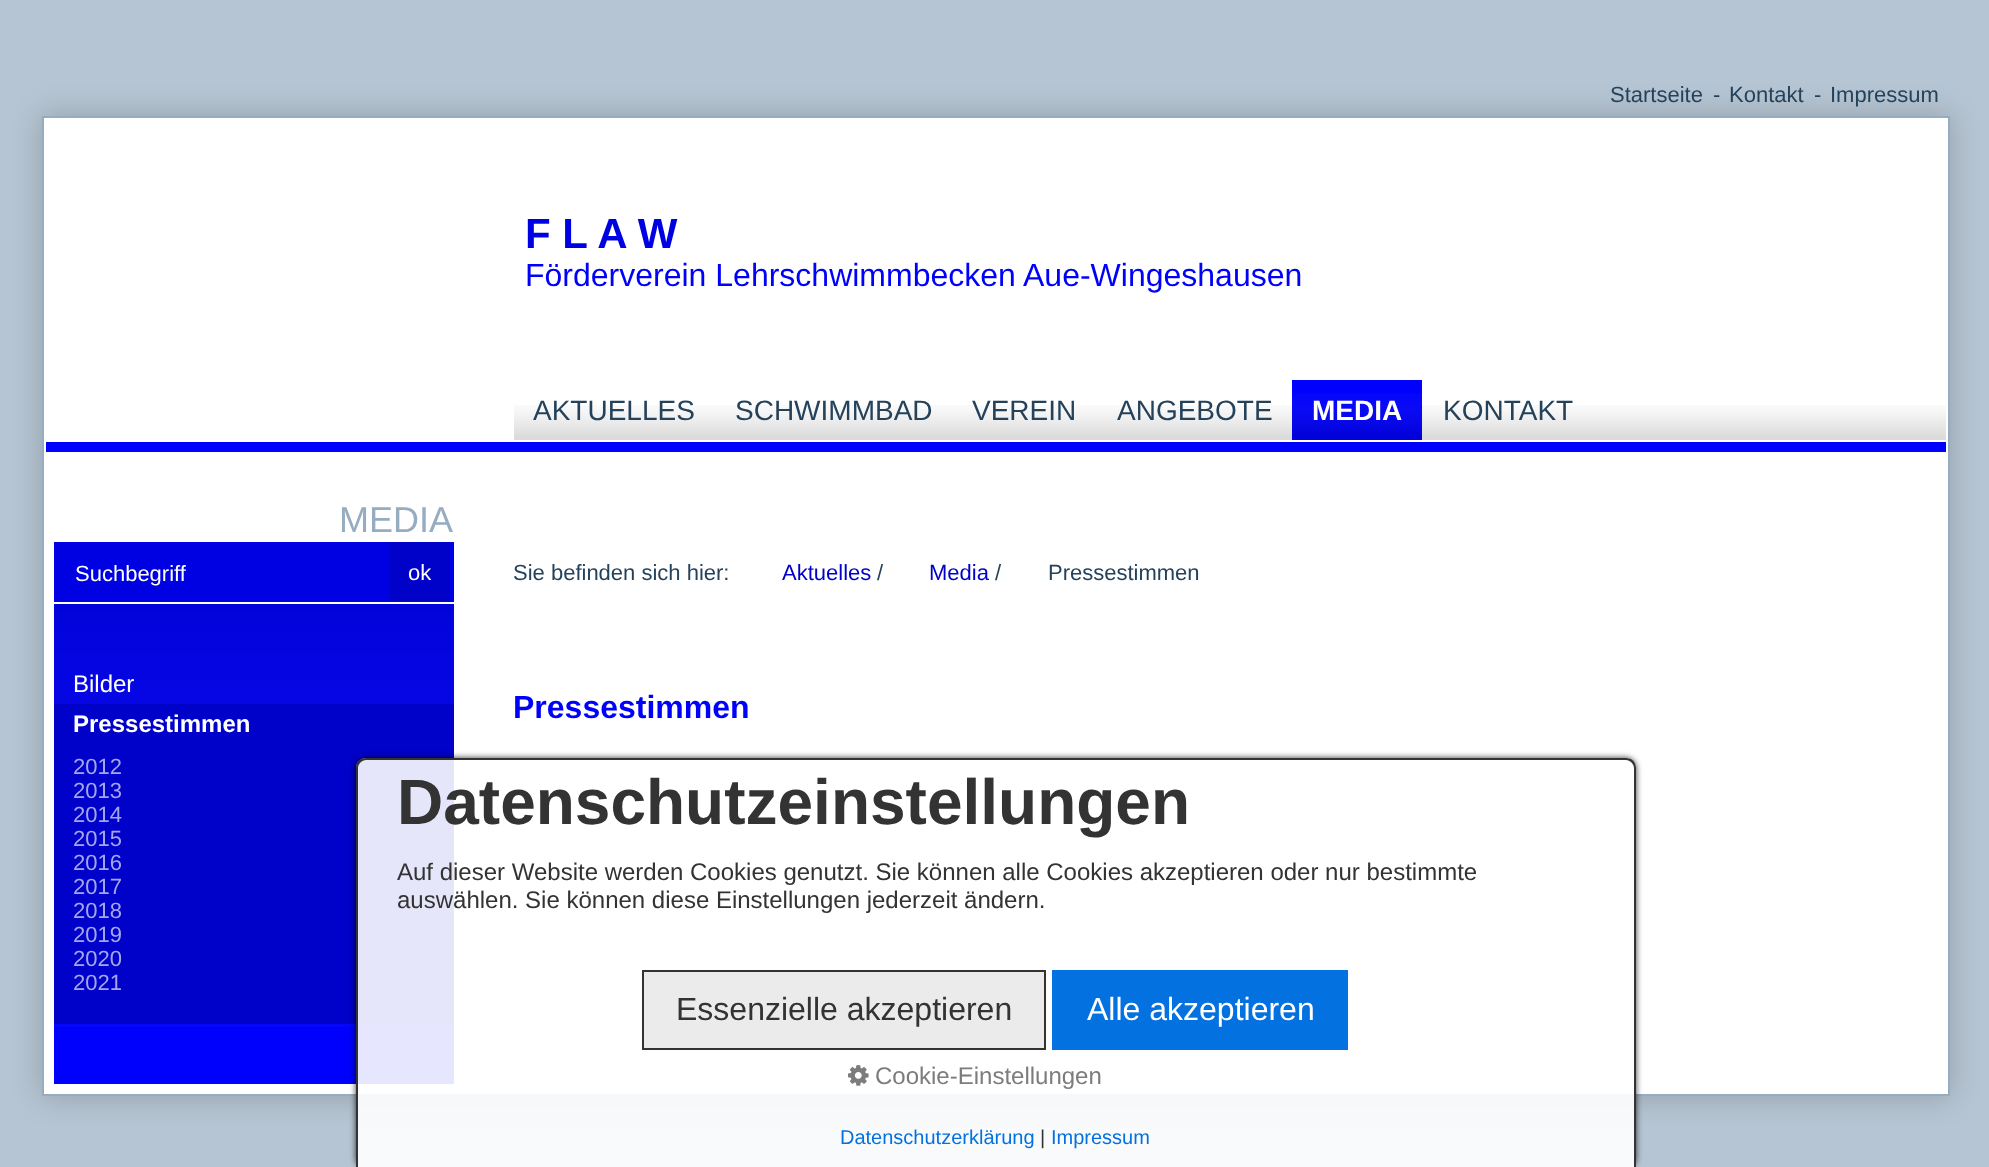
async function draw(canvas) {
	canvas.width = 1989;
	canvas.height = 1167;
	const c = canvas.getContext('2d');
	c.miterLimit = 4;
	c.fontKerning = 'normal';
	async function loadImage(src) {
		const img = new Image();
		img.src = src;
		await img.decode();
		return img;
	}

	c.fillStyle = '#b6c5d3';
	c.fillRect(0, 0, 1989, 1167);
	c.fillStyle = '#00000033';
	c.filter = 'blur(15px)';
	c.beginPath();
	c.rect(42, 116, 1908, 980);
	c.fill();
	c.filter = 'none';
	c.font = '22px Liberation Sans';
	c.fillStyle = '#25425b';
	for (const [text, x, y] of [
		['Startseite', 1610, 102],
		['-', 1713, 102],
		['Kontakt', 1729, 102],
		['-', 1814, 102],
		['Impressum', 1830, 102],
	]) {
		c.fillText(text, x, y);
	}
	c.fillStyle = '#fff';
	c.beginPath();
	c.rect(43, 117, 1906, 978);
	c.fill();
	c.strokeStyle = '#96acc0';
	c.lineWidth = 2;
	c.stroke();
	c.fillStyle = '#0001fc';
	c.fillRect(46, 442, 1900, 10);
	c.font = 'bold 42px Liberation Sans';
	c.fillStyle = '#0001e3';
	c.fillText('F L A W', 525, 248);
	c.font = '32px Liberation Sans';
	c.fillStyle = '#0001fc';
	c.fillText('Förderverein Lehrschwimmbecken Aue-Wingeshausen', 525, 286);
	c.drawImage(await loadImage('img1.png'), 514, 405, 1432, 35);
	c.font = '28px Liberation Sans';
	c.fillStyle = '#25425b';
	for (const [text, x, y] of [
		['AKTUELLES', 533, 420],
		['SCHWIMMBAD', 735, 420],
		['VEREIN', 972, 420],
		['ANGEBOTE', 1117, 420],
	]) {
		c.fillText(text, x, y);
	}
	c.fillStyle = '#0001fc';
	c.fillRect(1292, 380, 130, 60);
	c.drawImage(await loadImage('img2.png'), 1292, 393, 130, 47);
	c.font = 'bold 28px Liberation Sans';
	c.fillStyle = '#fff';
	c.fillText('MEDIA', 1312, 420);
	c.font = '28px Liberation Sans';
	c.fillStyle = '#25425b';
	c.fillText('KONTAKT', 1443, 420);
	c.font = '36px Liberation Sans';
	c.fillStyle = '#96acc0';
	c.fillText('MEDIA', 339, 532);
	c.fillStyle = '#0001fc';
	c.fillRect(54, 604, 400, 480);
	c.drawImage(await loadImage('img3.png'), 54, 604, 400, 423);
	c.fillStyle = '#0001e3';
	c.fillRect(54, 542, 400, 60);
	c.font = '22px Liberation Sans';
	c.fillStyle = '#fff';
	c.fillText('Suchbegriff', 75, 581);
	c.fillStyle = '#0001c9';
	c.fillRect(390, 542, 60, 60);
	c.fillStyle = '#fff';
	c.fillText('ok', 408, 580);
	c.font = '24px Liberation Sans';
	c.fillText('Bilder', 73, 692);
	c.fillStyle = '#0001c9';
	c.fillRect(54, 704, 400, 320);
	c.font = 'bold 24px Liberation Sans';
	c.fillStyle = '#fff';
	c.fillText('Pressestimmen', 73, 732);
	c.font = '22px Liberation Sans';
	c.fillStyle = '#a6a6ef';
	for (const [text, x, y] of [
		['2012', 73, 774],
		['2013', 73, 798],
		['2014', 73, 822],
		['2015', 73, 846],
		['2016', 73, 870],
		['2017', 73, 894],
		['2018', 73, 918],
		['2019', 73, 942],
		['2020', 73, 966],
		['2021', 73, 990],
	]) {
		c.fillText(text, x, y);
	}
	c.fillStyle = '#25425b';
	c.fillText('Sie befinden sich hier:', 513, 580);
	c.fillStyle = '#0001c9';
	c.fillText('Aktuelles', 782, 580);
	c.fillStyle = '#25425b';
	c.fillText('/', 877, 580);
	c.fillStyle = '#0001c9';
	c.fillText('Media', 929, 580);
	c.fillStyle = '#25425b';
	c.fillText('/', 995, 580);
	c.fillText('Pressestimmen', 1048, 580);
	c.font = 'bold 32px Liberation Sans';
	c.fillStyle = '#0001fc';
	c.fillText('Pressestimmen', 513, 718);
	c.save();
	c.beginPath();
	c.moveTo(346, 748);
	c.lineTo(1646, 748);
	c.lineTo(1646, 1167);
	c.lineTo(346, 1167);
	c.closePath();
	c.moveTo(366, 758);
	c.lineTo(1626, 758);
	c.bezierCurveTo(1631.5, 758, 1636, 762.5, 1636, 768);
	c.lineTo(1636, 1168);
	c.lineTo(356, 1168);
	c.lineTo(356, 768);
	c.bezierCurveTo(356, 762.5, 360.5, 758, 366, 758);
	c.closePath();
	c.clip('evenodd');
	c.fillStyle = '#000000cc';
	c.filter = 'blur(3px)';
	c.beginPath();
	c.roundRect(356, 758, 1280, 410, 10);
	c.fill();
	c.filter = 'none';
	c.restore();
	c.fillStyle = '#ffffffe6';
	c.beginPath();
	c.moveTo(366, 758);
	c.lineTo(1626, 758);
	c.bezierCurveTo(1631.5, 758, 1636, 762.5, 1636, 768);
	c.lineTo(1636, 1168);
	c.lineTo(356, 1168);
	c.lineTo(356, 768);
	c.bezierCurveTo(356, 762.5, 360.5, 758, 366, 758);
	c.closePath();
	c.fill();
	c.fillStyle = '#333';
	c.beginPath();
	c.moveTo(366, 758);
	c.lineTo(1626, 758);
	c.bezierCurveTo(1632, 758, 1636, 762, 1636, 768);
	c.lineTo(1636, 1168);
	c.lineTo(356, 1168);
	c.lineTo(356, 768);
	c.bezierCurveTo(356, 762, 360, 758, 366, 758);
	c.closePath();
	c.moveTo(366, 760);
	c.lineTo(1626, 760);
	c.bezierCurveTo(1630, 760, 1634, 764, 1634, 768);
	c.lineTo(1634, 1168);
	c.lineTo(358, 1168);
	c.lineTo(358, 768);
	c.bezierCurveTo(358, 764, 362, 760, 366, 760);
	c.closePath();
	c.fill('evenodd');
	c.font = 'bold 64px Liberation Sans';
	c.fillText('Datenschutzeinstellungen', 397, 824);
	c.font = '24px Liberation Sans';
	c.fillText('Auf dieser Website werden Cookies genutzt. Sie können alle Cookies akzeptieren oder nur bestimmte', 397, 880);
	c.fillText('auswählen. Sie können diese Einstellungen jederzeit ändern.', 397, 908);
	c.fillStyle = '#ebebeb';
	c.beginPath();
	c.rect(643, 971, 402, 78);
	c.fill();
	c.strokeStyle = '#333';
	c.stroke();
	c.font = '32px Liberation Sans';
	c.fillStyle = '#333';
	c.fillText('Essenzielle akzeptieren', 676, 1020);
	c.fillStyle = '#0371df';
	c.fillRect(1052, 970, 296, 80);
	c.fillStyle = '#fff';
	c.fillText('Alle akzeptieren', 1087, 1020);
	c.drawImage(await loadImage('img4.png'), 848, 1065, 21, 21);
	c.font = '24px Liberation Sans';
	c.fillStyle = '#7c7c7c';
	c.fillText('Cookie-Einstellungen', 875, 1084);
	c.font = '20px Liberation Sans';
	c.fillStyle = '#0371df';
	c.fillText('Datenschutzerklärung', 840, 1144);
	c.fillStyle = '#333';
	c.fillText('|', 1040, 1144);
	c.fillStyle = '#0371df';
	c.fillText('Impressum', 1051, 1144);
}

draw(document.querySelector('canvas'));
